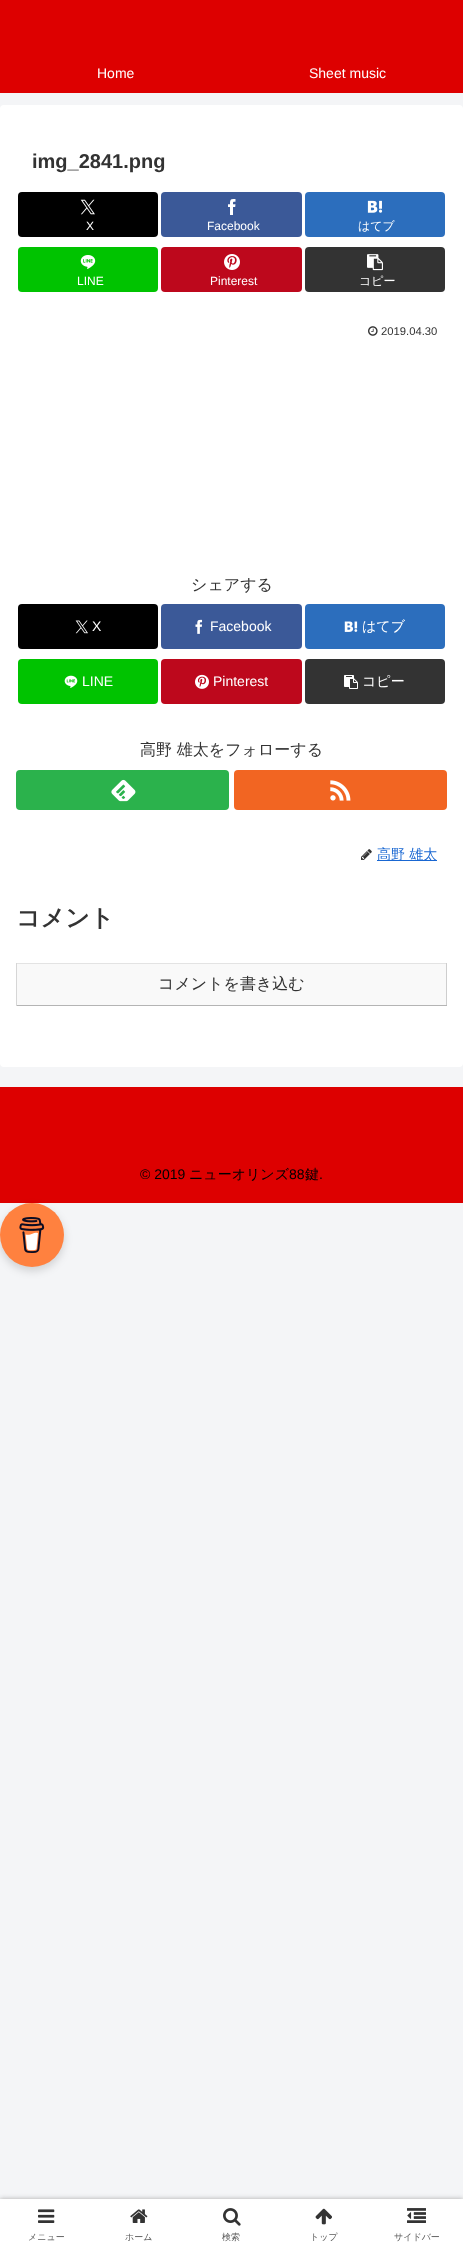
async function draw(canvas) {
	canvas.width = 463;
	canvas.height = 2249;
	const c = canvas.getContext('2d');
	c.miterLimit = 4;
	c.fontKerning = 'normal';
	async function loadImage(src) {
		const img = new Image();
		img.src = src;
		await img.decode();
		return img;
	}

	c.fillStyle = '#f4f5f7';
	c.fillRect(0, 0, 463, 2249);
	c.fillStyle = '#d00';
	c.fillRect(0, 0, 463, 93);
	c.font = '14px Liberation Sans';
	c.fillStyle = '#fff';
	c.fillText('Home', 97, 78);
	c.fillText('Sheet music', 309, 78);
	c.beginPath();
	c.roundRect(0, 105, 463, 962, 4);
	c.fill();
	c.font = 'bold 20px Liberation Sans';
	c.fillStyle = '#333';
	c.fillText('img_2841.png', 32, 168);
	c.fillStyle = '#000';
	c.beginPath();
	c.roundRect(18, 192, 140, 45, 4);
	c.fill();
	c.drawImage(await loadImage('img1.png'), 80, 199, 15, 16);
	c.font = '12px Liberation Sans';
	c.fillStyle = '#fff';
	c.fillText('X', 86, 230);
	c.fillStyle = '#3b5998';
	c.beginPath();
	c.roundRect(161, 192, 141, 45, 4);
	c.fill();
	c.drawImage(await loadImage('img2.png'), 228, 199, 8, 16);
	c.fillStyle = '#fff';
	c.fillText('Facebook', 207, 230);
	c.fillStyle = '#2c6ebd';
	c.beginPath();
	c.roundRect(305, 192, 140, 45, 4);
	c.fill();
	c.drawImage(await loadImage('img3.png'), 367, 200, 16, 13);
	c.font = '500 12px WenQuanYi Zen Hei';
	c.fillStyle = '#fff';
	c.fillText('はてブ', 358, 230);
	c.fillStyle = '#00c300';
	c.beginPath();
	c.roundRect(18, 247, 140, 45, 4);
	c.fill();
	c.drawImage(await loadImage('img4.png'), 80, 255, 16, 14);
	c.font = '12px Liberation Sans';
	c.fillStyle = '#fff';
	c.fillText('LINE', 77, 285);
	c.fillStyle = '#bd081c';
	c.beginPath();
	c.roundRect(161, 247, 141, 45, 4);
	c.fill();
	c.drawImage(await loadImage('img5.png'), 224, 254, 16, 16);
	c.fillStyle = '#fff';
	c.fillText('Pinterest', 210, 285);
	c.fillStyle = '#333';
	c.beginPath();
	c.roundRect(305, 247, 140, 45, 4);
	c.fill();
	c.drawImage(await loadImage('img6.png'), 367, 254, 16, 17);
	c.font = '500 12px WenQuanYi Zen Hei';
	c.fillStyle = '#fff';
	c.fillText('コピー', 359, 285);
	c.drawImage(await loadImage('img7.png'), 368, 326, 10, 10);
	c.font = '11.25px Liberation Sans';
	c.fillStyle = '#333';
	c.fillText('2019.04.30', 381, 335);
	c.font = '500 16px WenQuanYi Zen Hei';
	c.fillText('シェアする', 191, 590);
	c.fillStyle = '#000';
	c.beginPath();
	c.roundRect(18, 604, 140, 45, 4);
	c.fill();
	c.drawImage(await loadImage('img8.png'), 75, 620, 13, 14);
	c.font = '14px Liberation Sans';
	c.fillStyle = '#fff';
	c.fillText('X', 92, 631);
	c.fillStyle = '#3b5998';
	c.beginPath();
	c.roundRect(161, 604, 141, 45, 4);
	c.fill();
	c.drawImage(await loadImage('img9.png'), 195, 619, 8, 15);
	c.fillStyle = '#fff';
	c.fillText('Facebook', 210, 631);
	c.fillStyle = '#2c6ebd';
	c.beginPath();
	c.roundRect(305, 604, 140, 45, 4);
	c.fill();
	c.drawImage(await loadImage('img10.png'), 344, 621, 14, 11);
	c.font = '500 14px WenQuanYi Zen Hei';
	c.fillStyle = '#fff';
	c.fillText('はてブ', 362, 631);
	c.fillStyle = '#00c300';
	c.beginPath();
	c.roundRect(18, 659, 140, 45, 4);
	c.fill();
	c.drawImage(await loadImage('img11.png'), 64, 675, 14, 13);
	c.font = '14px Liberation Sans';
	c.fillStyle = '#fff';
	c.fillText('LINE', 82, 686);
	c.fillStyle = '#bd081c';
	c.beginPath();
	c.roundRect(161, 659, 141, 45, 4);
	c.fill();
	c.drawImage(await loadImage('img12.png'), 195, 674, 14, 15);
	c.fillStyle = '#fff';
	c.fillText('Pinterest', 213, 686);
	c.fillStyle = '#333';
	c.beginPath();
	c.roundRect(305, 659, 140, 45, 4);
	c.fill();
	c.drawImage(await loadImage('img13.png'), 344, 675, 14, 14);
	c.font = '500 14px WenQuanYi Zen Hei';
	c.fillStyle = '#fff';
	c.fillText('コピー', 362, 686);
	c.font = '500 16px WenQuanYi Zen Hei';
	c.fillStyle = '#333';
	c.fillText('高野 雄太をフォローする', 140, 755);
	c.fillStyle = '#2bb24c';
	c.beginPath();
	c.roundRect(16, 770, 213, 40, 4);
	c.fill();
	c.drawImage(await loadImage('img14.png'), 111, 779, 25, 23);
	c.fillStyle = '#f26522';
	c.beginPath();
	c.roundRect(234, 770, 213, 40, 4);
	c.fill();
	c.drawImage(await loadImage('img15.png'), 330, 780, 21, 21);
	c.drawImage(await loadImage('img16.png'), 361, 849, 11, 11);
	c.fillStyle = '#1967d2';
	c.fillRect(377, 860, 60, 1);
	c.font = '500 14px WenQuanYi Zen Hei';
	c.fillText('高野 雄太', 377, 859);
	c.font = 'bold 24px WenQuanYi Zen Hei';
	c.fillStyle = '#333';
	c.fillText('コメント', 16, 926);
	for (const [x, y, w, h, color] of [
		[17, 964, 429, 41, '#f9f9f9'],
		[16, 963, 431, 1, '#e3e3e3'],
		[446, 963, 1, 43, '#cecece'],
		[16, 1005, 431, 1, '#b4b4b4'],
		[16, 963, 1, 43, '#d6d6d6'],
	]) {
		c.fillStyle = color;
		c.fillRect(x, y, w, h);
	}
	c.font = '500 16px WenQuanYi Zen Hei';
	c.fillStyle = '#333';
	c.fillText('コメントを書き込む', 158, 989);
	c.fillStyle = '#d00';
	c.fillRect(0, 1087, 463, 116);
	c.font = '14px Liberation Sans';
	c.fillStyle = '#000';
	c.fillText('© 2019', 140, 1179);
	c.font = '500 14px WenQuanYi Zen Hei';
	c.fillText('ニューオリンズ', 189, 1179);
	c.font = '14px Liberation Sans';
	c.fillText('88', 289, 1179);
	c.font = '500 14px WenQuanYi Zen Hei';
	c.fillText('鍵', 305, 1179);
	c.font = '14px Liberation Sans';
	c.fillText('.', 319, 1179);
	c.fillStyle = '#a9a9a9';
	c.filter = 'blur(2.5px)';
	c.beginPath();
	c.rect(0, 2199, 463, 50);
	c.fill();
	c.filter = 'none';
	c.fillStyle = '#fff';
	c.fillRect(0, 2199, 463, 50);
	c.drawImage(await loadImage('img17.png'), 38, 2209, 17, 14);
	c.font = '500 9px WenQuanYi Zen Hei';
	c.fillStyle = '#5c5c5c';
	c.fillText('メニュー', 28, 2240);
	c.drawImage(await loadImage('img18.png'), 130, 2209, 18, 14);
	c.fillText('ホーム', 125, 2240);
	c.drawImage(await loadImage('img19.png'), 223, 2208, 18, 18);
	c.fillText('検索', 222, 2240);
	c.drawImage(await loadImage('img20.png'), 315, 2208, 17, 17);
	c.fillText('トップ', 310, 2240);
	c.drawImage(await loadImage('img21.png'), 407, 2208, 19, 15);
	c.fillText('サイドバー', 394, 2240);
	c.fillStyle = '#00000026';
	c.filter = 'blur(4px)';
	c.beginPath();
	c.roundRect(0, 1207, 64, 64, 32);
	c.fill();
	c.filter = 'none';
	c.fillStyle = '#ff813f';
	c.beginPath();
	c.arc(32, 1235, 32, 0, 2 * Math.PI);
	c.fill();
	c.drawImage(await loadImage('img22.png'), 19, 1217, 26, 36);
}

draw(document.querySelector('canvas'));
